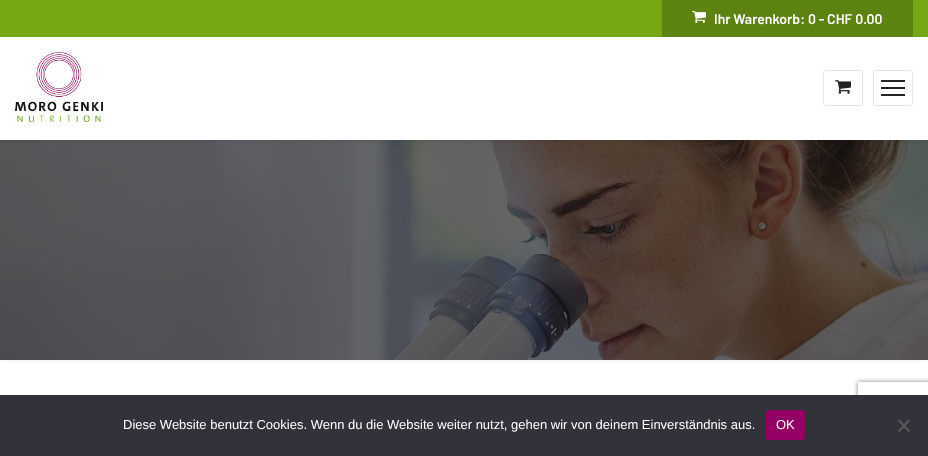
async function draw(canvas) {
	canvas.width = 928;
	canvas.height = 456;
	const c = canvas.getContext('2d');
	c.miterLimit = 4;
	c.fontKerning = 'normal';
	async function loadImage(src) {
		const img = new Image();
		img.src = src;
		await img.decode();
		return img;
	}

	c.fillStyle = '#fff';
	c.fillRect(0, 0, 928, 456);
	c.fillStyle = '#0c0c0c33';
	c.filter = 'blur(3.5px)';
	c.beginPath();
	c.rect(0, 137, 928, 220);
	c.fill();
	c.filter = 'none';
	c.drawImage(await loadImage('img4.png'), 0, 140, 928, 220);
	c.fillStyle = '#00000026';
	c.filter = 'blur(2.5px)';
	c.beginPath();
	c.rect(0, 0, 928, 140);
	c.fill();
	c.filter = 'none';
	for (const [x, y, w, h, color] of [
		[0, 37, 928, 103, '#fff'],
		[0, 0, 928, 37, '#76a713'],
		[662, 0, 251, 37, '#5c820f'],
	]) {
		c.fillStyle = color;
		c.fillRect(x, y, w, h);
	}
	c.drawImage(await loadImage('img1.png'), 692, 11, 14, 12);
	c.font = '600 14px Barlow';
	c.fillStyle = '#fff';
	c.fillText('Ihr Warenkorb: 0 - CHF 0.00', 714, 24);
	c.drawImage(await loadImage('img2.png'), 15, 52, 89, 70);
	c.beginPath();
	c.roundRect(823.5, 70.5, 39, 35, 2.5);
	c.strokeStyle = '#e6e6e6';
	c.stroke();
	c.drawImage(await loadImage('img3.png'), 835, 80, 16, 14);
	c.beginPath();
	c.roundRect(873.5, 70.5, 39, 35, 2.5);
	c.stroke();
	for (const [x, y, w, h, color] of [
		[881, 80, 24, 2, '#222'],
		[881, 87, 24, 2, '#222'],
		[881, 94, 24, 2, '#222'],
	]) {
		c.fillStyle = color;
		c.fillRect(x, y, w, h);
	}
	c.save();
	c.beginPath();
	c.moveTo(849, 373);
	c.lineTo(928, 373);
	c.lineTo(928, 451);
	c.lineTo(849, 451);
	c.closePath();
	c.moveTo(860, 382);
	c.lineTo(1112, 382);
	c.bezierCurveTo(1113, 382, 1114, 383, 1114, 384);
	c.lineTo(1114, 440);
	c.bezierCurveTo(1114, 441, 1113, 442, 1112, 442);
	c.lineTo(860, 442);
	c.bezierCurveTo(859, 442, 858, 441, 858, 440);
	c.lineTo(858, 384);
	c.bezierCurveTo(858, 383, 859, 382, 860, 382);
	c.closePath();
	c.clip('evenodd');
	c.fillStyle = '#808080';
	c.filter = 'blur(2.5px)';
	c.beginPath();
	c.roundRect(858, 382, 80, 60, 2);
	c.fill();
	c.filter = 'none';
	c.restore();
	c.fillStyle = '#32323a';
	c.fillRect(0, 395, 928, 61);
	c.font = '13px Liberation Sans';
	c.fillStyle = '#fff';
	c.fillText('Diese Website benutzt Cookies. Wenn du die Website weiter nutzt, gehen wir von deinem Einverständnis aus.', 123, 429);
	c.fillStyle = '#940063';
	c.beginPath();
	c.roundRect(766, 410, 39, 30, 3);
	c.fill();
	c.fillStyle = '#fff';
	c.fillText('OK', 776, 429);
	c.fillStyle = '#59595d';
	c.beginPath();
	c.moveTo(908.5, 419.5);
	c.lineTo(910, 421);
	c.lineTo(899.5, 432);
	c.lineTo(898, 430.5);
	c.closePath();
	c.fill();
	c.beginPath();
	c.moveTo(898, 421);
	c.lineTo(899.5, 419.5);
	c.lineTo(910, 430.5);
	c.lineTo(908.5, 432);
	c.closePath();
	c.fill();
}

draw(document.querySelector('canvas'));
